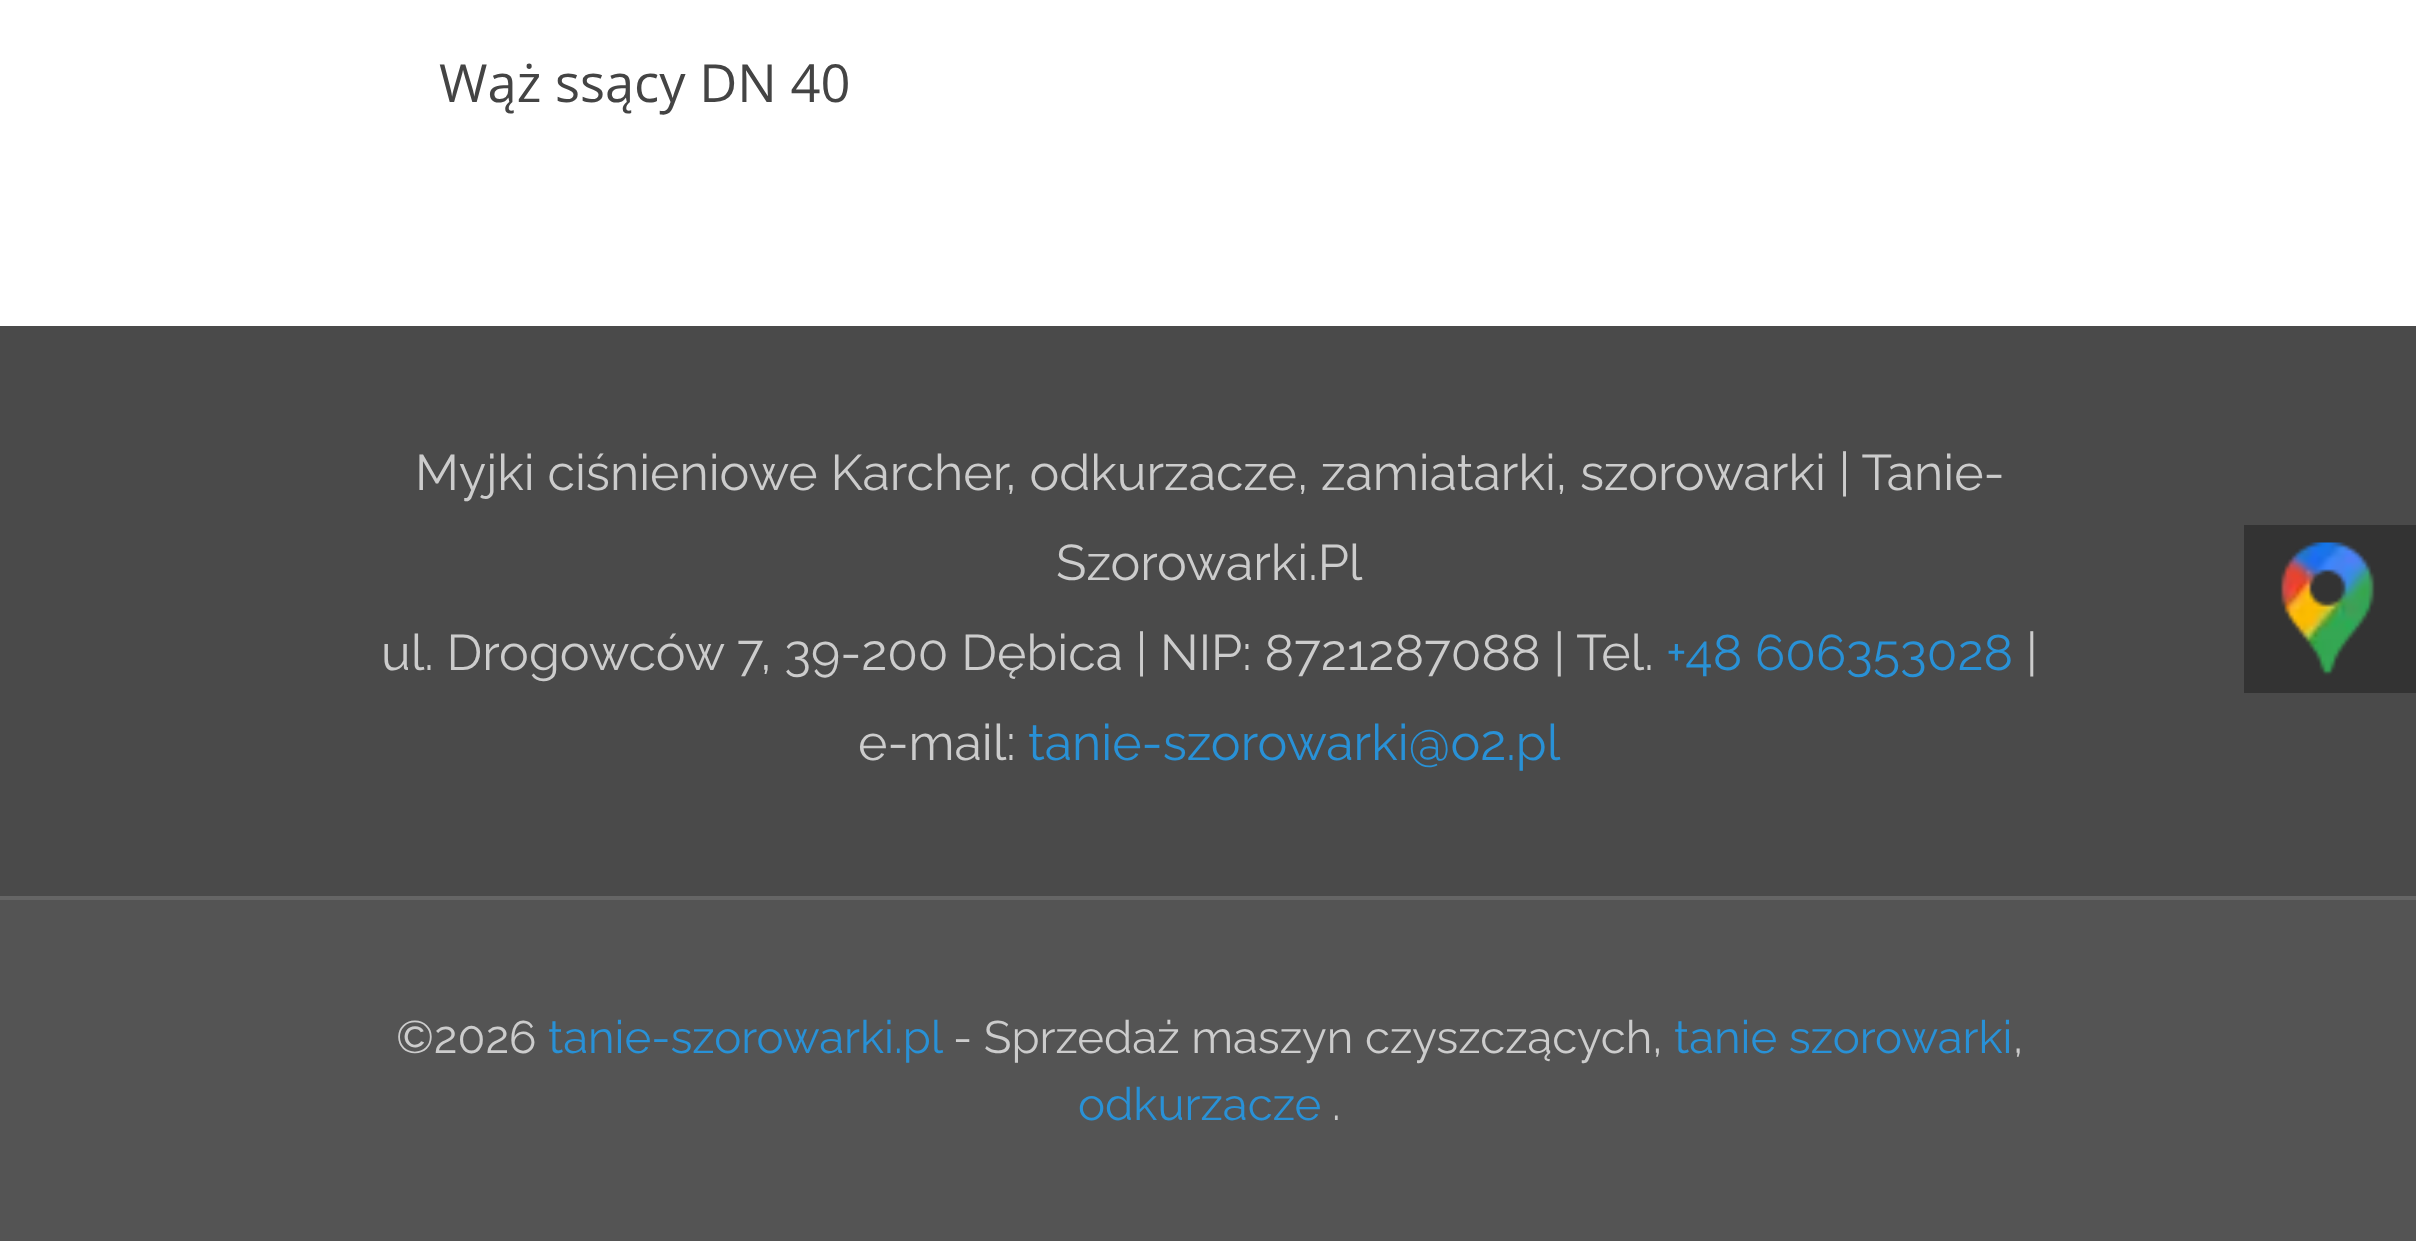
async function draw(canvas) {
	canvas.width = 2416;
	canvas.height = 1241;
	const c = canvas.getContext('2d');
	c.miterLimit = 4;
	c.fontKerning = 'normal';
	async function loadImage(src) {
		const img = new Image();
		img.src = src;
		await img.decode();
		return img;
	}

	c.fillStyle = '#fff';
	c.fillRect(0, 0, 2416, 1241);
	c.font = '52.5px Open Sans';
	c.fillStyle = '#444';
	c.fillText('Wąż ssący DN 40', 439, 102);
	c.fillStyle = '#545454';
	c.fillRect(0, 900, 2416, 341);
	c.fillStyle = '#4a4a4a';
	c.fillRect(0, 326, 2416, 570);
	c.font = '50.05px Raleway';
	c.fillStyle = '#ccc';
	for (const [text, x, y] of [
		['Myjki ciśnieniowe Karcher, odkurzacze, zamiatarki, szorowarki | Tanie-', 415, 490],
		['Szorowarki.Pl', 1056, 580],
		['ul. Drogowców 7, 39-200 Dębica | NIP: 8721287088 | Tel.', 381, 670],
	]) {
		c.fillText(text, x, y);
	}
	c.fillStyle = '#2991d6';
	c.fillText('+48 606353028', 1666, 670);
	c.fillStyle = '#ccc';
	c.fillText('|', 2026, 670);
	c.fillText('e-mail:', 858, 760);
	c.fillStyle = '#2991d6';
	c.fillText('tanie-szorowarki@o2.pl', 1028, 760);
	c.fillStyle = '#656565';
	c.fillRect(0, 896, 2416, 4);
	c.font = '45.5px Raleway';
	c.fillStyle = '#ccc';
	c.fillText('©2026', 396, 1053);
	c.fillStyle = '#2991d6';
	c.fillText('tanie-szorowarki.pl', 548, 1053);
	c.fillStyle = '#ccc';
	c.fillText('- Sprzedaż maszyn czyszczących,', 953, 1053);
	c.fillStyle = '#2991d6';
	c.fillText('tanie szorowarki', 1674, 1053);
	c.fillStyle = '#ccc';
	c.fillText(',', 2013, 1053);
	c.fillStyle = '#2991d6';
	c.fillText('odkurzacze', 1078, 1120);
	c.fillStyle = '#ccc';
	c.fillText('.', 1332, 1120);
	c.fillStyle = '#333';
	c.fillRect(2244, 525, 172, 168);
	c.drawImage(await loadImage('img1.png'), 2280, 542, 95, 134);
}

draw(document.querySelector('canvas'));
